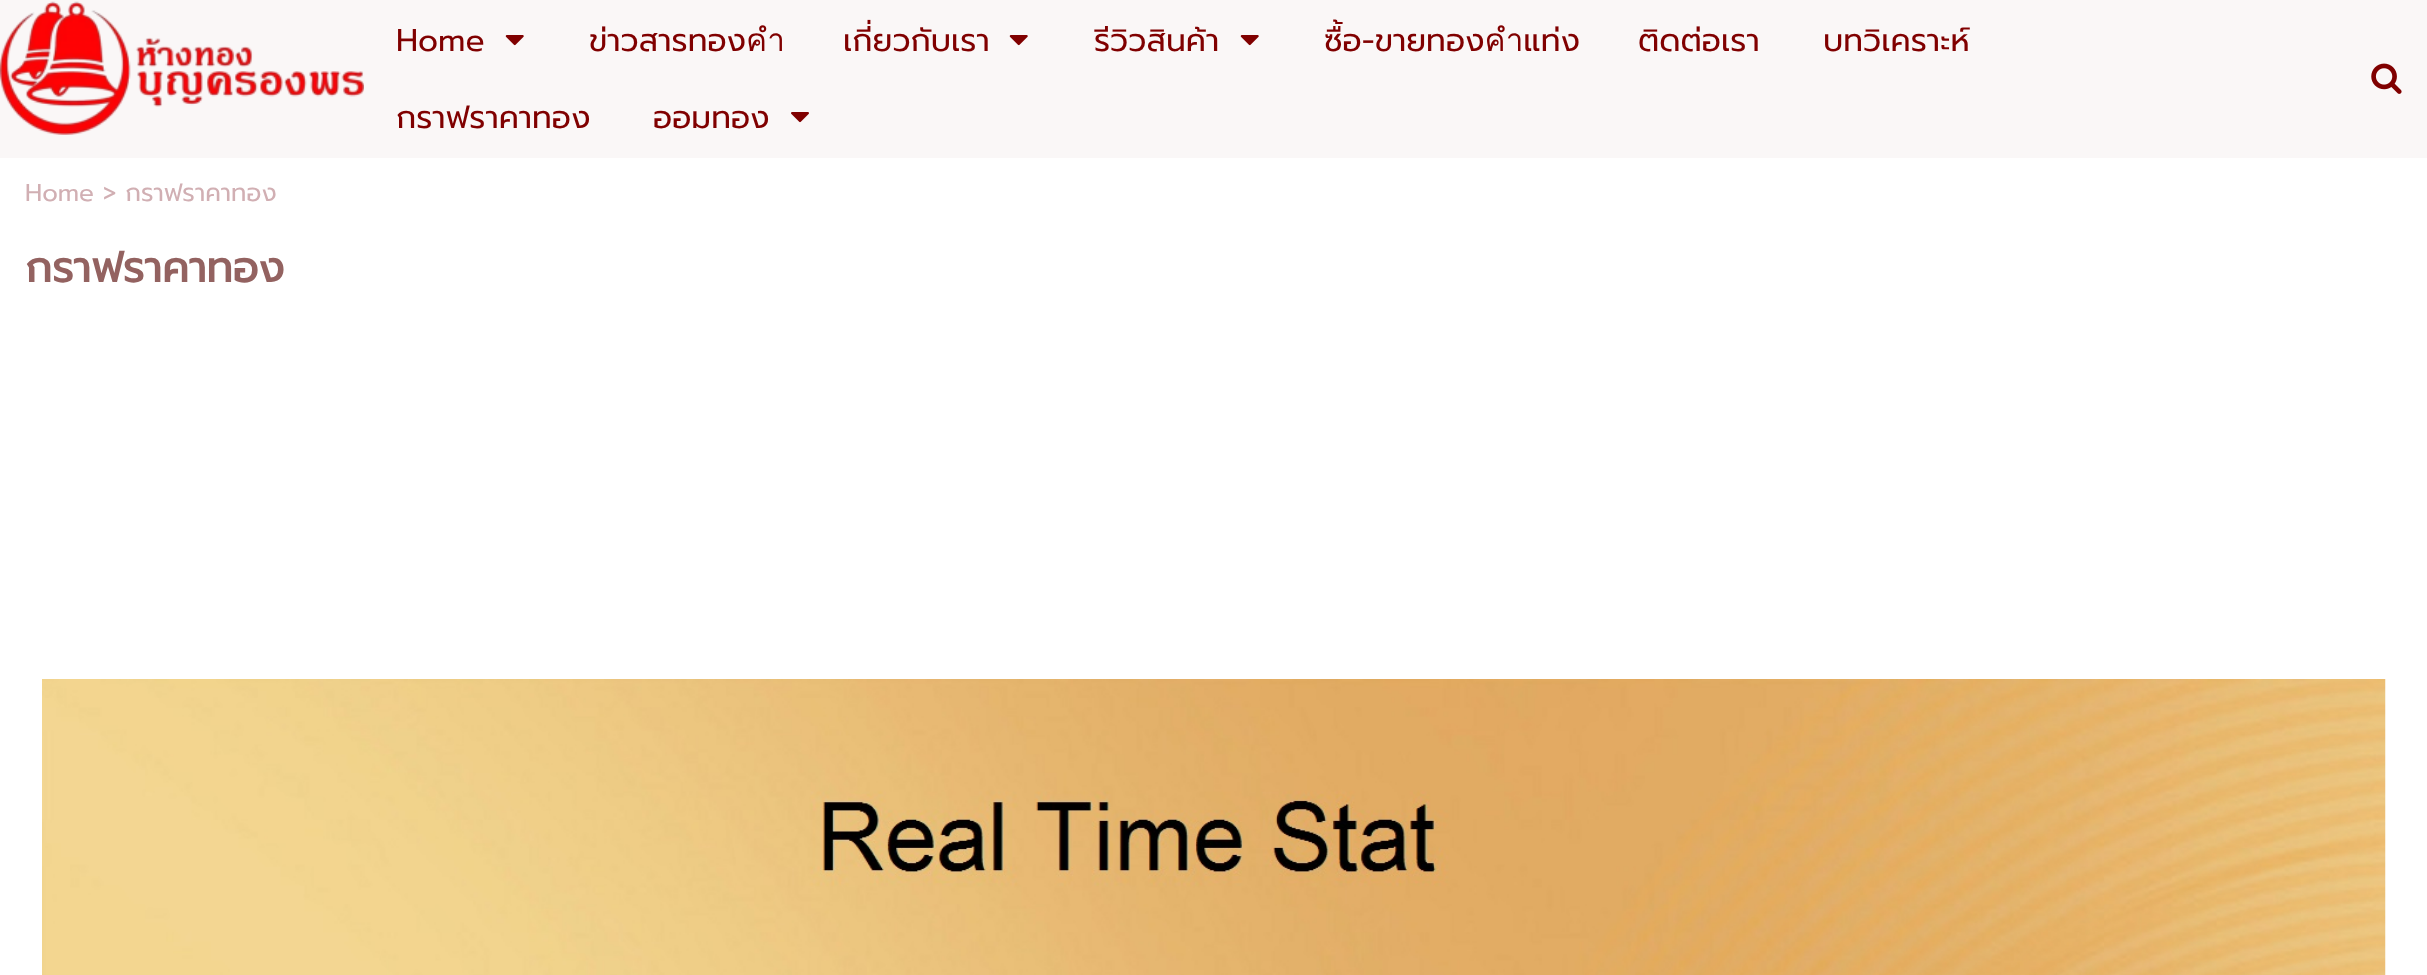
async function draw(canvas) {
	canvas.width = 2427;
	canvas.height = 975;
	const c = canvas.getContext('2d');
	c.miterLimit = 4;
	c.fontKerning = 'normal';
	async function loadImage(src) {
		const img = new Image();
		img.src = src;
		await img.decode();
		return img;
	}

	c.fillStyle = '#fff';
	c.fillRect(0, 0, 2427, 975);
	c.fillStyle = '#faf7f7';
	c.fillRect(0, 0, 2427, 158);
	c.drawImage(await loadImage('img1.png'), 0, 1, 364, 134);
	c.font = '31.5px Prompt';
	c.fillStyle = '#800000';
	c.fillText('Home', 396, 51);
	c.drawImage(await loadImage('img2.png'), 505, 35, 19, 11);
	c.fillText('ข่าวสารทองคำ', 589, 51);
	c.fillText('เกี่ยวกับเรา', 843, 51);
	c.drawImage(await loadImage('img3.png'), 1009, 35, 19, 11);
	c.fillText('รีวิวสินค้า', 1094, 51);
	c.drawImage(await loadImage('img2.png'), 1240, 35, 19, 11);
	for (const [text, x, y] of [
		['ซื้อ-ขายทองคำแท่ง', 1324, 51],
		['ติดต่อเรา', 1638, 51],
		['บทวิเคราะห์', 1823, 51],
		['กราฟราคาทอง', 396, 128],
		['ออมทอง', 653, 128],
	]) {
		c.fillText(text, x, y);
	}
	c.drawImage(await loadImage('img4.png'), 791, 112, 18, 11);
	c.drawImage(await loadImage('img5.png'), 2371, 63, 31, 31);
	c.font = '24.5px Prompt';
	c.fillStyle = '#d1afb3';
	c.fillText('Home > กราฟราคาทอง', 25, 201);
	c.font = 'bold 42px Prompt';
	c.fillStyle = '#936260';
	c.fillText('กราฟราคาทอง', 25, 282);
	c.drawImage(await loadImage('img6.png'), 42, 679, 2344, 296);
}

draw(document.querySelector('canvas'));
